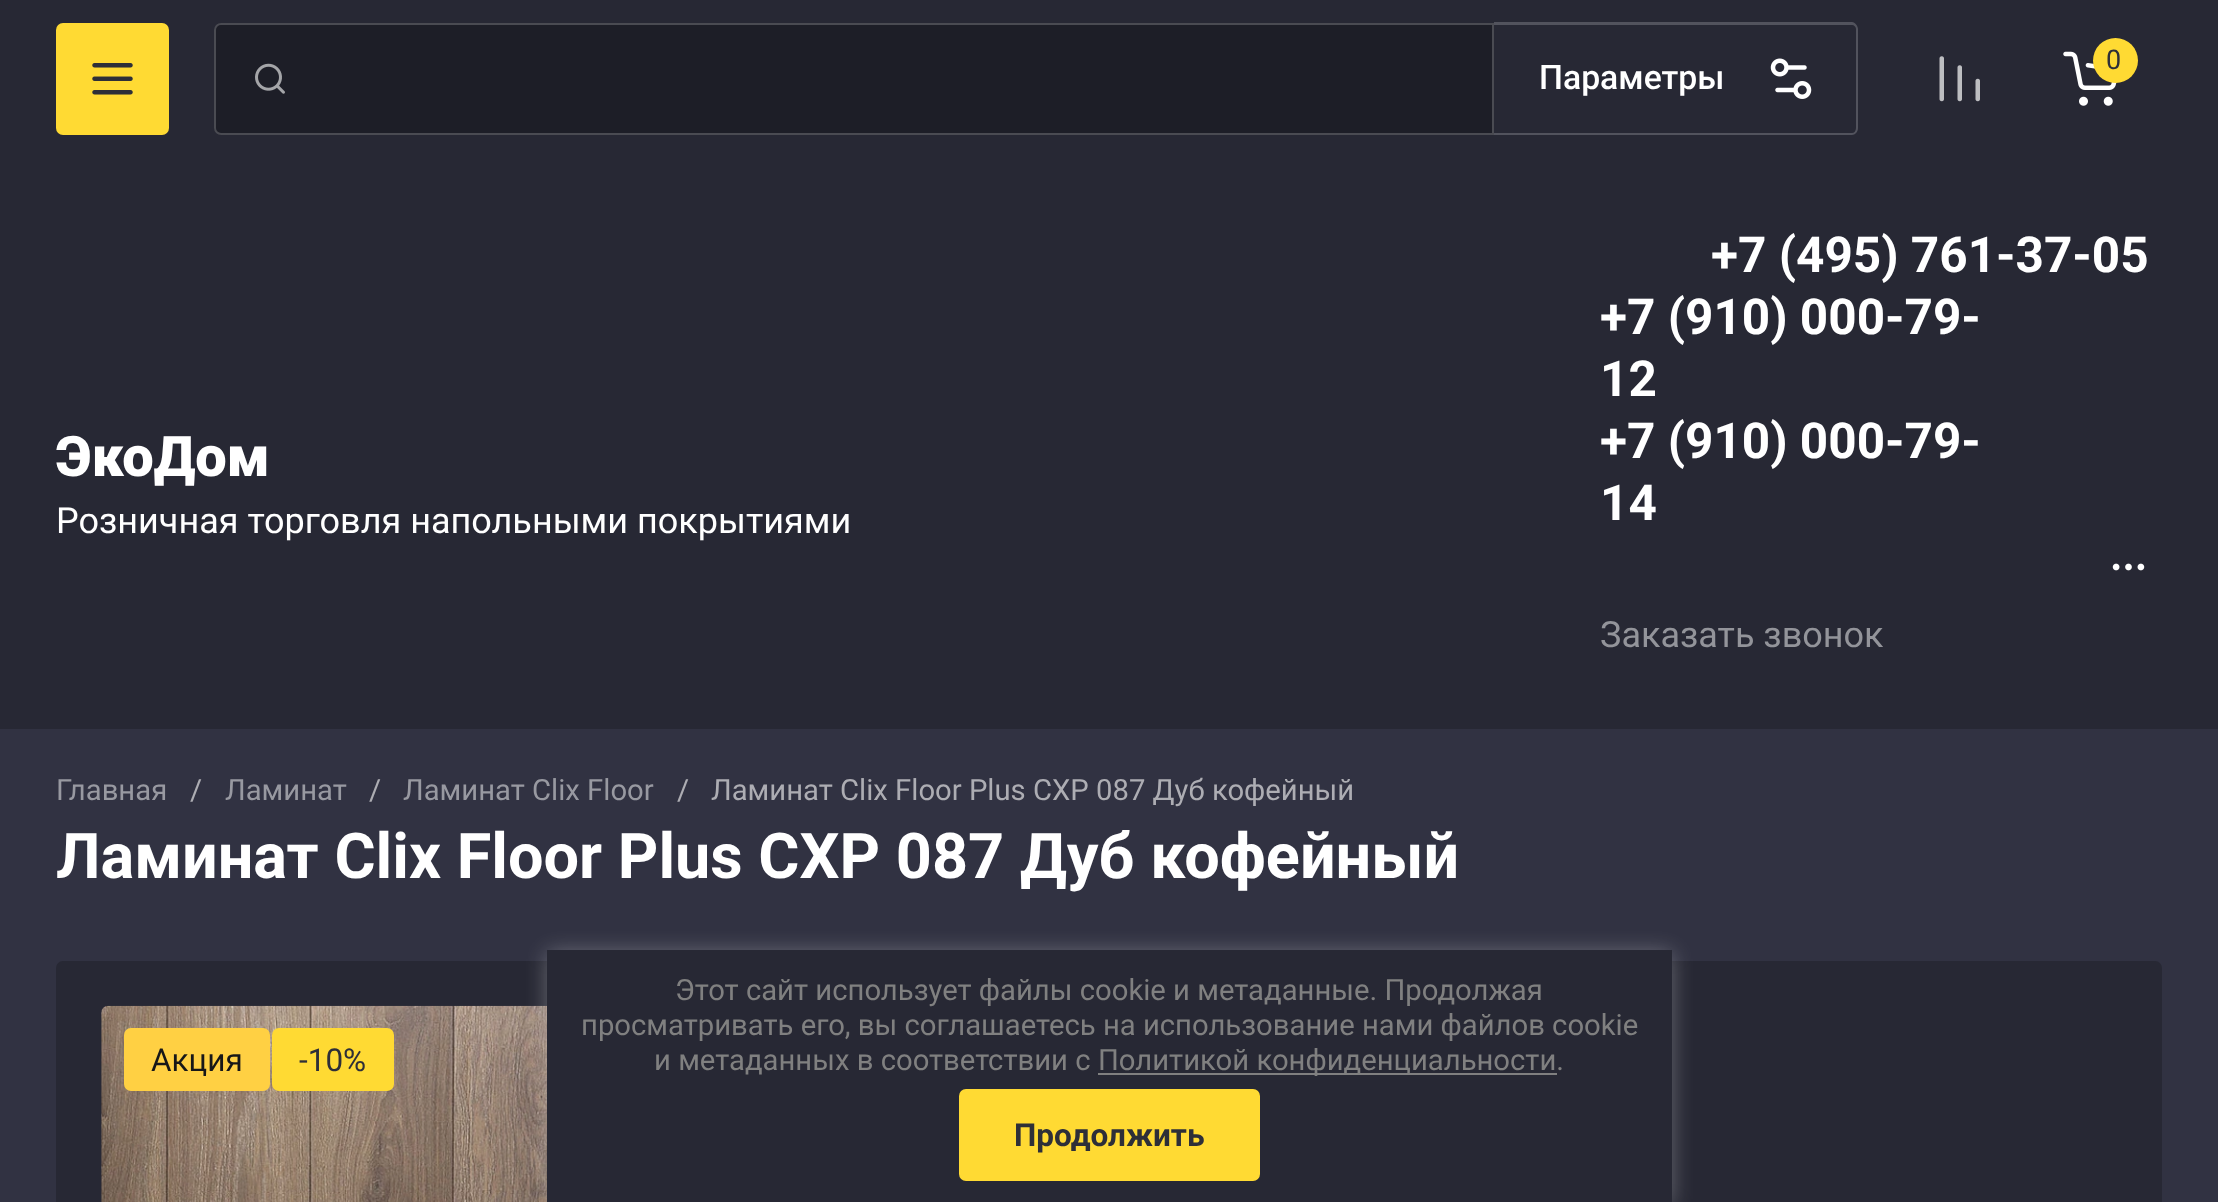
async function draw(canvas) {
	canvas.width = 2218;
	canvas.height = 1202;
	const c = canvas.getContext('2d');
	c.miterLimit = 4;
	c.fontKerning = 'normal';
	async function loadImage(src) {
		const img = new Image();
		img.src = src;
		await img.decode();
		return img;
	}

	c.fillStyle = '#313242';
	c.fillRect(0, 0, 2218, 1202);
	c.fillStyle = '#272834';
	c.fillRect(0, 0, 2218, 729);
	c.fillStyle = '#ffda33';
	c.beginPath();
	c.roundRect(56, 23, 113, 112, 7);
	c.fill();
	c.drawImage(await loadImage('img1.png'), 92, 63, 41, 32);
	c.drawImage(await loadImage('img2.png'), 1939, 56, 41, 46);
	c.drawImage(await loadImage('img3.png'), 2063, 51, 54, 55);
	c.beginPath();
	c.arc(2115.5, 60.5, 22.5, 0, 2 * Math.PI);
	c.fill();
	c.font = '27px Roboto';
	c.fillStyle = '#2e2f38';
	c.fillText('0', 2106, 69);
	c.fillStyle = '#1d1e27';
	c.beginPath();
	c.roundRect(214, 23, 1280, 112, [7, 0, 0, 7]);
	c.fill();
	c.beginPath();
	c.roundRect(215, 24, 1278, 110, [6, 0, 0, 6]);
	c.strokeStyle = '#ffffff33';
	c.lineWidth = 2;
	c.stroke();
	c.drawImage(await loadImage('img4.png'), 255, 63, 30, 31);
	c.fillStyle = '#52535d';
	c.beginPath();
	c.moveTo(1494, 22);
	c.lineTo(1852, 22);
	c.bezierCurveTo(1855, 22, 1858, 26, 1858, 29);
	c.lineTo(1858, 128);
	c.bezierCurveTo(1858, 132, 1855, 135, 1852, 135);
	c.lineTo(1494, 135);
	c.closePath();
	c.moveTo(1494, 25);
	c.lineTo(1852, 25);
	c.bezierCurveTo(1854, 25, 1856, 27, 1856, 29);
	c.lineTo(1856, 128);
	c.bezierCurveTo(1856, 131, 1854, 133, 1852, 133);
	c.lineTo(1494, 133);
	c.closePath();
	c.fill('evenodd');
	c.font = '500 33.75px Roboto';
	c.fillStyle = '#fff';
	c.fillText('Параметры', 1539, 89);
	c.drawImage(await loadImage('img5.png'), 1770, 58, 42, 41);
	c.font = '900 56px Roboto';
	c.fillText('ЭкоДом', 56, 476);
	c.font = '36px Roboto';
	c.fillText('Розничная торговля напольными покрытиями', 56, 533);
	c.font = 'bold 49.5px Roboto';
	for (const [text, x, y] of [
		['+7 (495) 761-37-05', 1711, 272],
		['+7 (910) 000-79-', 1600, 334],
		['12', 1600, 396],
		['+7 (910) 000-79-', 1600, 458],
		['14', 1600, 520],
	]) {
		c.fillText(text, x, y);
	}
	c.drawImage(await loadImage('img6.png'), 2112, 563, 33, 8);
	c.font = '36px Roboto';
	c.fillStyle = '#93949a';
	c.fillText('Заказать звонок', 1600, 647);
	c.font = '29.25px Roboto';
	c.fillStyle = '#9899a1';
	c.fillText('Главная', 56, 800);
	c.fillStyle = '#adadb3';
	c.fillText('/', 190, 800);
	c.fillStyle = '#9899a1';
	c.fillText('Ламинат', 225, 800);
	c.fillStyle = '#adadb3';
	c.fillText('/', 369, 800);
	c.fillStyle = '#9899a1';
	c.fillText('Ламинат Clix Floor', 403, 800);
	c.fillStyle = '#adadb3';
	c.fillText('/', 677, 800);
	c.fillText('Ламинат Clix Floor Plus CXP 087 Дуб кофейный', 711, 800);
	c.font = 'bold 63px Roboto';
	c.fillStyle = '#fff';
	c.fillText('Ламинат Clix Floor Plus CXP 087 Дуб кофейный', 56, 878);
	c.fillStyle = '#272834';
	c.beginPath();
	c.roundRect(56, 961, 2106, 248, 7);
	c.fill();
	c.drawImage(await loadImage('img7.png'), 101, 1005, 446, 197);
	c.fillStyle = '#ffd043';
	c.beginPath();
	c.roundRect(124, 1028, 146, 63, 7);
	c.fill();
	c.font = '31.5px Roboto';
	c.fillStyle = '#171718';
	c.fillText('Акция', 151, 1071);
	c.fillStyle = '#ffda33';
	c.beginPath();
	c.roundRect(272, 1028, 122, 63, 7);
	c.fill();
	c.fillStyle = '#2e2f38';
	c.fillText('-10%', 299, 1071);
	c.fillStyle = '#ffffff4d';
	c.filter = 'blur(11px)';
	c.beginPath();
	c.rect(547, 952, 1125, 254);
	c.fill();
	c.filter = 'none';
	c.fillStyle = '#272834';
	c.fillRect(547, 950, 1125, 252);
	c.font = '29.25px Roboto';
	c.fillStyle = '#808080';
	for (const [text, x, y] of [
		['Этот сайт использует файлы cookie и метаданные. Продолжая', 675, 1000],
		['просматривать его, вы соглашаетесь на использование нами файлов cookie', 581, 1035],
		['и метаданных в соответствии с', 654, 1070],
	]) {
		c.fillText(text, x, y);
	}
	c.fillRect(1098, 1073, 459, 2);
	c.fillText('Политикой конфиденциальности.', 1098, 1070);
	c.fillStyle = '#ffda33';
	c.beginPath();
	c.roundRect(959, 1089, 301, 92, 7);
	c.fill();
	c.font = 'bold 31.5px Roboto';
	c.fillStyle = '#2e2f38';
	c.fillText('Продолжить', 1014, 1146);
}

draw(document.querySelector('canvas'));
